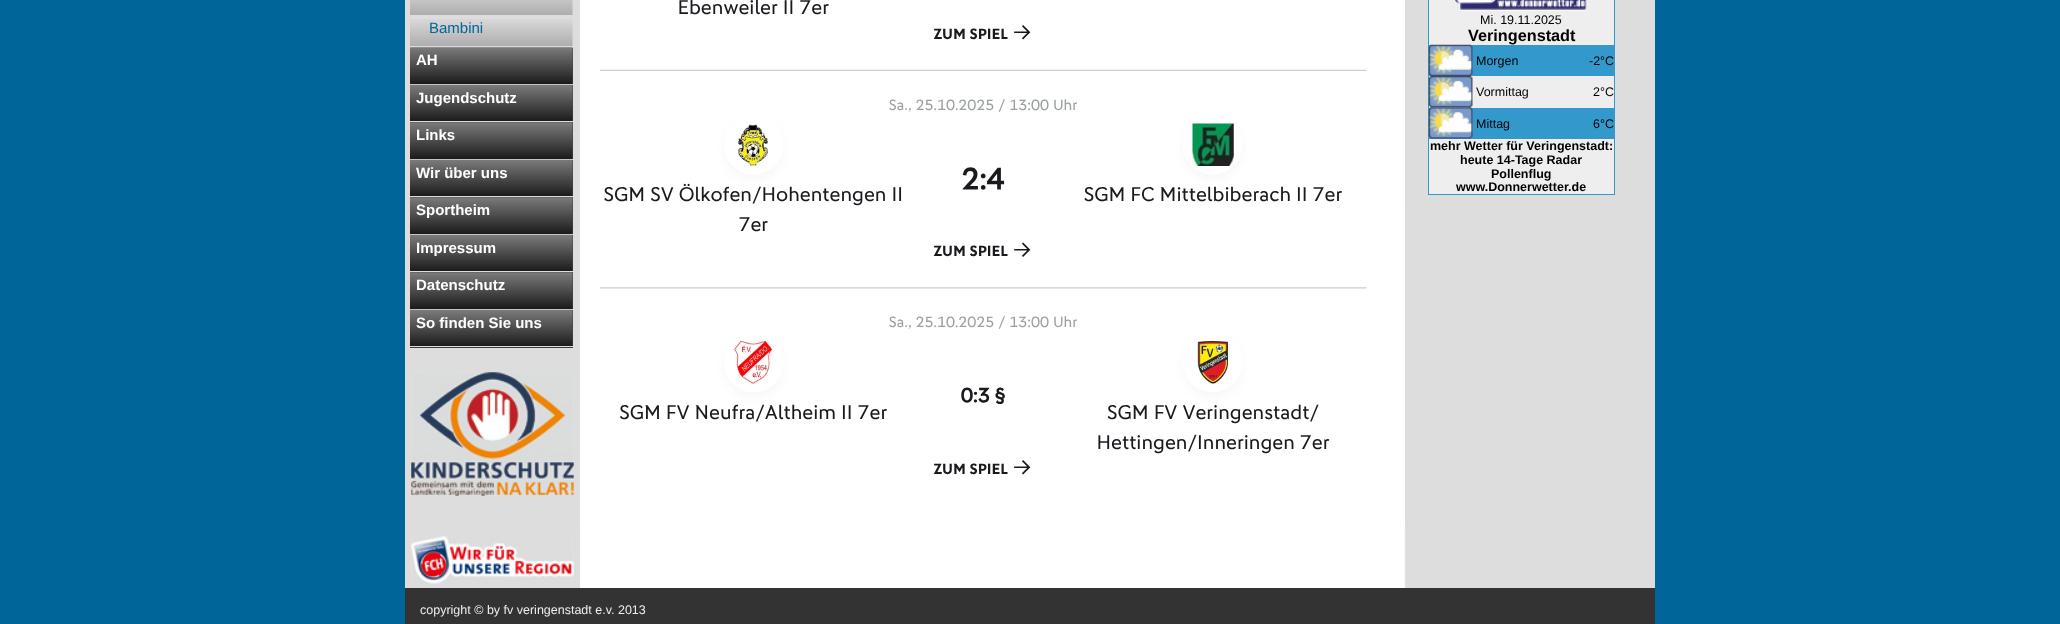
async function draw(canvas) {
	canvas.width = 2060;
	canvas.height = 624;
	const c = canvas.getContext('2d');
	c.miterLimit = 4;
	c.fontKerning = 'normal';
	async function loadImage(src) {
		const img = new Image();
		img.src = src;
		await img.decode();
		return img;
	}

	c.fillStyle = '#069';
	c.fillRect(0, 0, 2060, 624);
	c.drawImage(await loadImage('img1.png'), 580, 208, 1075, 380);
	c.fillStyle = '#ddd';
	c.fillRect(405, 0, 175, 588);
	c.fillStyle = '#444';
	c.fillRect(410, 48, 163, 300);
	c.drawImage(await loadImage('img2.png'), 410, 0, 163, 15);
	c.drawImage(await loadImage('img3.png'), 410, 19, 163, 29);
	c.fillStyle = '#ddd';
	c.fillRect(410, 46, 163, 1);
	c.font = '15px Liberation Sans';
	c.fillStyle = '#069';
	c.fillText('Bambini', 429, 33);
	c.drawImage(await loadImage('img4.png'), 410, 47, 163, 37);
	c.fillStyle = '#ddd';
	c.fillRect(410, 84, 163, 1);
	c.font = 'bold 15px Liberation Sans';
	c.fillStyle = '#fff';
	c.fillText('AH', 416, 65);
	c.drawImage(await loadImage('img5.png'), 410, 84, 163, 39);
	c.fillStyle = '#ddd';
	c.fillRect(410, 121, 163, 1);
	c.fillStyle = '#fff';
	c.fillText('Jugendschutz', 416, 103);
	c.drawImage(await loadImage('img6.png'), 410, 122, 163, 37);
	c.fillStyle = '#ddd';
	c.fillRect(410, 159, 163, 1);
	c.fillStyle = '#fff';
	c.fillText('Links', 416, 140);
	c.drawImage(await loadImage('img5.png'), 410, 159, 163, 39);
	c.fillStyle = '#ddd';
	c.fillRect(410, 196, 163, 1);
	c.fillStyle = '#fff';
	c.fillText('Wir über uns', 416, 178);
	c.drawImage(await loadImage('img6.png'), 410, 197, 163, 37);
	c.fillStyle = '#ddd';
	c.fillRect(410, 234, 163, 1);
	c.fillStyle = '#fff';
	c.fillText('Sportheim', 416, 215);
	c.drawImage(await loadImage('img5.png'), 410, 234, 163, 39);
	c.fillStyle = '#ddd';
	c.fillRect(410, 271, 163, 1);
	c.fillStyle = '#fff';
	c.fillText('Impressum', 416, 253);
	c.drawImage(await loadImage('img6.png'), 410, 272, 163, 37);
	c.fillStyle = '#ddd';
	c.fillRect(410, 309, 163, 1);
	c.fillStyle = '#fff';
	c.fillText('Datenschutz', 416, 290);
	c.drawImage(await loadImage('img5.png'), 410, 309, 163, 39);
	c.fillStyle = '#ddd';
	c.fillRect(410, 346, 163, 1);
	c.fillStyle = '#fff';
	c.fillText('So finden Sie uns', 416, 328);
	c.drawImage(await loadImage('img7.png'), 411, 372, 163, 124);
	c.drawImage(await loadImage('img8.png'), 411, 535, 163, 49);
	c.fillRect(580, 0, 825, 525);
	c.drawImage(await loadImage('img9.png'), 600, 0, 767, 475);
	for (const [x, y, w, h, color] of [
		[1405, 0, 250, 208, '#ddd'],
		[1428, 0, 187, 195, '#39c'],
		[1429, 0, 185, 194, '#eee'],
	]) {
		c.fillStyle = color;
		c.fillRect(x, y, w, h);
	}
	c.drawImage(await loadImage('img10.png'), 1453, 0, 134, 11);
	c.font = '12.5px Liberation Sans';
	c.fillStyle = '#000';
	c.fillText('Mi. 19.11.2025', 1480, 24);
	c.font = 'bold 16.25px Liberation Sans';
	c.fillText('Veringenstadt', 1468, 41);
	c.fillStyle = '#39c';
	c.fillRect(1429, 45, 185, 31);
	c.drawImage(await loadImage('img11.png'), 1428, 44, 45, 32);
	c.font = '12.5px Liberation Sans';
	c.fillStyle = '#000';
	c.fillText('Morgen', 1476, 65);
	c.fillText('-2°C', 1589, 65);
	c.drawImage(await loadImage('img12.png'), 1428, 76, 45, 32);
	c.fillText('Vormittag', 1476, 96);
	c.fillText('2°C', 1593, 96);
	c.fillStyle = '#39c';
	c.fillRect(1429, 108, 185, 31);
	c.drawImage(await loadImage('img13.png'), 1428, 107, 45, 32);
	c.fillStyle = '#000';
	c.fillText('Mittag', 1476, 128);
	c.fillText('6°C', 1593, 128);
	c.font = 'bold 12.5px Liberation Sans';
	for (const [text, x, y] of [
		['mehr Wetter für Veringenstadt:', 1430, 150],
		['heute 14-Tage Radar', 1460, 164],
		['Pollenflug', 1491, 178],
		['www.Donnerwetter.de', 1456, 191],
	]) {
		c.fillText(text, x, y);
	}
	c.fillStyle = '#333';
	c.fillRect(405, 588, 1250, 36);
	c.font = '12.5px Liberation Sans';
	c.fillStyle = '#eee';
	c.fillText('copyright © by fv veringenstadt e.v. 2013', 420, 614);
}

draw(document.querySelector('canvas'));
